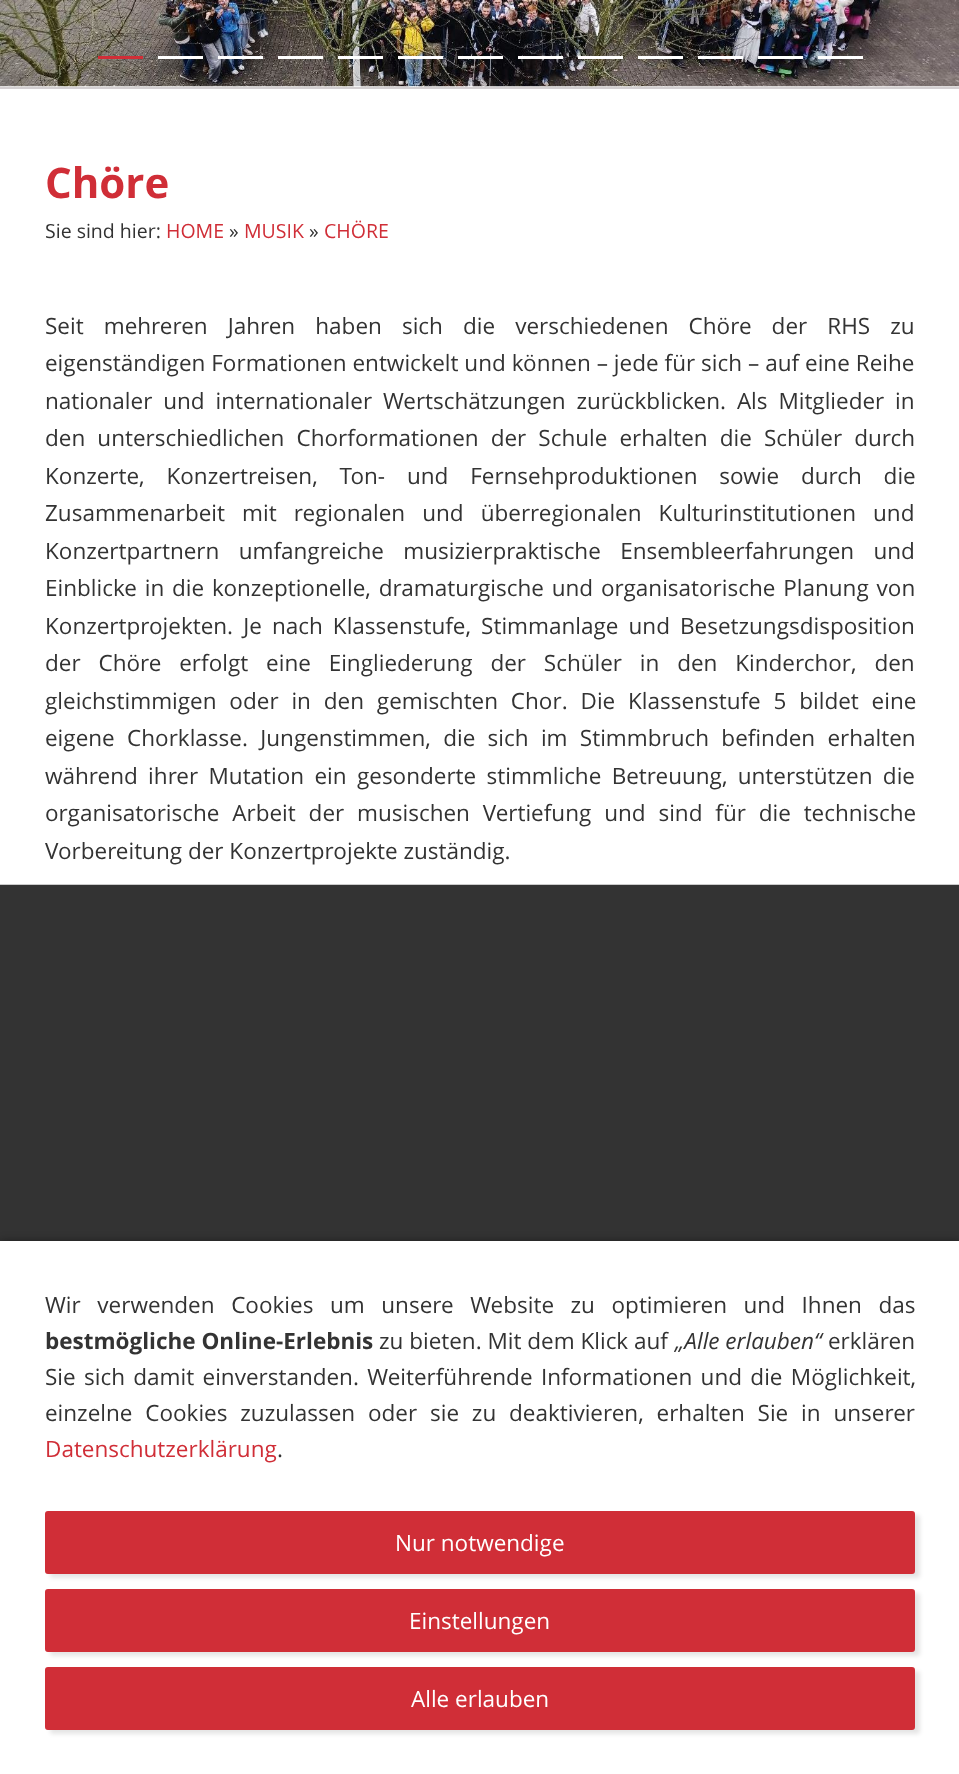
async function draw(canvas) {
	canvas.width = 959;
	canvas.height = 1774;
	const c = canvas.getContext('2d');
	c.miterLimit = 4;
	c.fontKerning = 'normal';
	async function loadImage(src) {
		const img = new Image();
		img.src = src;
		await img.decode();
		return img;
	}

	c.fillStyle = '#fff';
	c.fillRect(0, 0, 959, 1774);
	c.fillStyle = '#d3cfd1';
	c.fillRect(0, 87, 959, 2);
	c.drawImage(await loadImage('img1.png'), 0, 0, 959, 87);
	for (const [x, y, w, h, color] of [
		[98, 56, 45, 3, '#d02e37'],
		[158, 56, 45, 3, '#fff'],
		[218, 56, 45, 3, '#fff'],
		[278, 56, 45, 3, '#fff'],
		[338, 56, 45, 3, '#fff'],
		[398, 56, 45, 3, '#fff'],
		[458, 56, 45, 3, '#fff'],
		[518, 56, 45, 3, '#fff'],
		[578, 56, 45, 3, '#fff'],
		[638, 56, 45, 3, '#fff'],
		[698, 56, 45, 3, '#fff'],
		[758, 56, 45, 3, '#fff'],
		[818, 56, 45, 3, '#fff'],
	]) {
		c.fillStyle = color;
		c.fillRect(x, y, w, h);
	}
	c.font = 'bold 42px Open Sans';
	c.fillStyle = '#d02e37';
	c.fillText('Chöre', 45, 198);
	c.font = '19.5px Open Sans';
	c.fillStyle = '#333';
	c.fillText('Sie sind hier:', 45, 238);
	c.fillStyle = '#d02e37';
	c.fillText('HOME', 166, 238);
	c.fillStyle = '#333';
	c.fillText('»', 229, 238);
	c.fillStyle = '#d02e37';
	c.fillText('MUSIK', 244, 238);
	c.fillStyle = '#333';
	c.fillText('»', 309, 238);
	c.fillStyle = '#d02e37';
	c.fillText('CHÖRE', 324, 238);
	c.wordSpacing = '14.25px';
	c.font = '22.5px Open Sans';
	c.fillStyle = '#333';
	c.fillText('Seit mehreren Jahren haben sich die verschiedenen Chöre der RHS zu', 45, 334);
	c.wordSpacing = '0.1px';
	c.fillText('eigenständigen Formationen entwickelt und können – jede für sich – auf eine Reihe', 45, 371);
	c.wordSpacing = '5px';
	c.fillText('nationaler und internationaler Wertschätzungen zurückblicken. Als Mitglieder in', 45, 409);
	c.wordSpacing = '6.25px';
	c.fillText('den unterschiedlichen Chorformationen der Schule erhalten die Schüler durch', 45, 446);
	c.wordSpacing = '16px';
	c.fillText('Konzerte, Konzertreisen, Ton- und Fernsehproduktionen sowie durch die', 45, 484);
	c.wordSpacing = '11.25px';
	c.fillText('Zusammenarbeit mit regionalen und überregionalen Kulturinstitutionen und', 45, 521);
	c.wordSpacing = '13.5px';
	c.fillText('Konzertpartnern umfangreiche musizierpraktische Ensembleerfahrungen und', 45, 559);
	c.wordSpacing = '2px';
	c.fillText('Einblicke in die konzeptionelle, dramaturgische und organisatorische Planung von', 45, 596);
	c.wordSpacing = '4.25px';
	c.fillText('Konzertprojekten. Je nach Klassenstufe, Stimmanlage und Besetzungsdisposition', 45, 634);
	c.wordSpacing = '12px';
	c.fillText('der Chöre erfolgt eine Eingliederung der Schüler in den Kinderchor, den', 45, 671);
	c.wordSpacing = '7px';
	c.fillText('gleichstimmigen oder in den gemischten Chor. Die Klassenstufe 5 bildet eine', 45, 709);
	c.wordSpacing = '6.5px';
	c.fillText('eigene Chorklasse. Jungenstimmen, die sich im Stimmbruch befinden erhalten', 45, 746);
	c.wordSpacing = '4.5px';
	c.fillText('während ihrer Mutation ein gesonderte stimmliche Betreuung, unterstützen die', 45, 784);
	c.wordSpacing = '7px';
	c.fillText('organisatorische Arbeit der musischen Vertiefung und sind für die technische', 45, 821);
	c.wordSpacing = '0px';
	c.fillText('Vorbereitung der Konzertprojekte zuständig.', 45, 859);
	c.drawImage(await loadImage('img2.png'), 0, 884, 959, 357);
	c.fillStyle = '#00000066';
	c.filter = 'blur(4px)';
	c.beginPath();
	c.rect(0, 1241, 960, 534);
	c.fill();
	c.filter = 'none';
	c.fillStyle = '#fff';
	c.fillRect(0, 1241, 959, 533);
	c.wordSpacing = '10.75px';
	c.fillStyle = '#333';
	c.fillText('Wir verwenden Cookies um unsere Website zu optimieren und Ihnen das', 45, 1313);
	c.wordSpacing = '0px';
	c.font = 'bold 22.5px Open Sans';
	c.fillText('bestmögliche Online-Erlebnis', 45, 1349);
	c.font = '22.5px Open Sans';
	c.fillText('zu bieten. Mit dem Klick auf', 379, 1349);
	c.font = 'italic 22.5px Open Sans';
	c.fillText('„Alle erlauben“', 675, 1349);
	c.font = '22.5px Open Sans';
	c.fillText('erklären', 828, 1349);
	c.wordSpacing = '2.5px';
	c.fillText('Sie sich damit einverstanden. Weiterführende Informationen und die Möglichkeit,', 45, 1385);
	c.wordSpacing = '7px';
	c.fillText('einzelne Cookies zuzulassen oder sie zu deaktivieren, erhalten Sie in unserer', 45, 1421);
	c.wordSpacing = '0px';
	c.fillStyle = '#d02e37';
	c.fillText('Datenschutzerklärung', 45, 1457);
	c.fillStyle = '#333';
	c.fillText('.', 277, 1457);
	c.fillStyle = '#0000001a';
	c.filter = 'blur(2px)';
	c.beginPath();
	c.roundRect(50, 1515, 870, 63, 3);
	c.fill();
	c.filter = 'none';
	c.fillStyle = '#d02e37';
	c.beginPath();
	c.roundRect(46, 1512, 868, 61, 2);
	c.fill();
	c.strokeStyle = '#d02e37';
	c.lineWidth = 2;
	c.stroke();
	c.fillStyle = '#fff';
	c.fillText('Nur notwendige', 395, 1551);
	c.fillStyle = '#0000001a';
	c.filter = 'blur(2px)';
	c.beginPath();
	c.roundRect(50, 1593, 870, 63, 3);
	c.fill();
	c.filter = 'none';
	c.fillStyle = '#d02e37';
	c.beginPath();
	c.roundRect(46, 1590, 868, 61, 2);
	c.fill();
	c.stroke();
	c.fillStyle = '#fff';
	c.fillText('Einstellungen', 409, 1629);
	c.fillStyle = '#0000001a';
	c.filter = 'blur(2px)';
	c.beginPath();
	c.roundRect(50, 1671, 870, 63, 3);
	c.fill();
	c.filter = 'none';
	c.fillStyle = '#d02e37';
	c.beginPath();
	c.roundRect(46, 1668, 868, 61, 2);
	c.fill();
	c.stroke();
	c.fillStyle = '#fff';
	c.fillText('Alle erlauben', 411, 1707);
}

draw(document.querySelector('canvas'));
